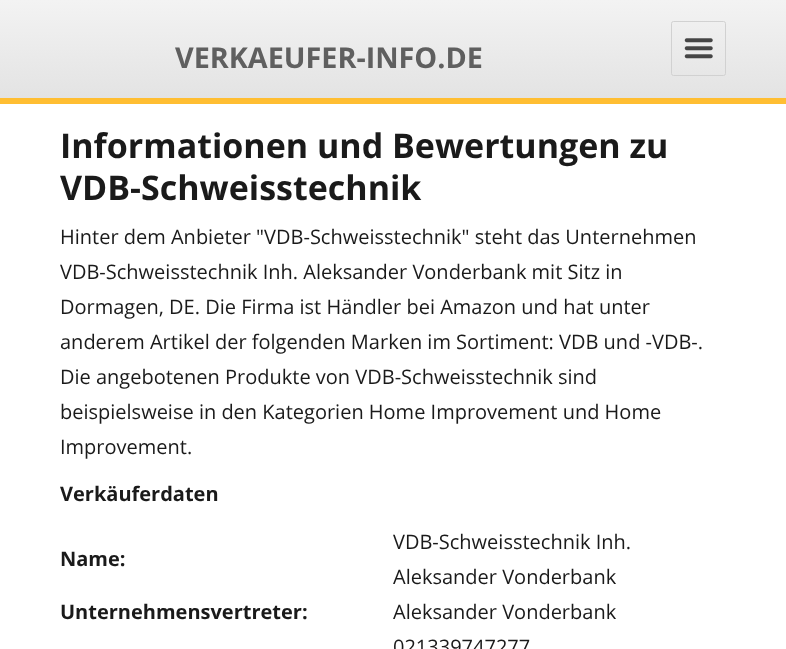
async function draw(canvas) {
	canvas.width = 786;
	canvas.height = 649;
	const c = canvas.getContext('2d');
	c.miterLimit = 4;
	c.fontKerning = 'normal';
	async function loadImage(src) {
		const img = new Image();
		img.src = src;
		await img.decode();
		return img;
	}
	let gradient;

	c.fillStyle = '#fff';
	c.fillRect(0, 0, 786, 649);
	gradient = c.createLinearGradient(393, 0, 393, 98);
	gradient.addColorStop(0, '#f3f3f3');
	gradient.addColorStop(1, '#e3e3e3');
	c.fillStyle = gradient;
	c.fillRect(0, 0, 786, 98);
	c.fillStyle = '#ffbe32';
	c.fillRect(0, 98, 786, 6);
	c.font = 'bold 28.75px Open Sans';
	c.fillStyle = '#5f5f5f';
	c.fillText('VERKAEUFER-INFO.DE', 175, 68);
	c.beginPath();
	c.roundRect(671.5, 21.5, 54, 54, 2);
	c.strokeStyle = '#d1d1d1';
	c.stroke();
	c.drawImage(await loadImage('img1.png'), 684, 38, 29, 21);
	c.font = 'bold 34px Open Sans';
	c.fillStyle = '#1a1a1a';
	c.fillText('Informationen und Bewertungen zu', 60, 158);
	c.fillText('VDB-Schweisstechnik', 60, 200);
	c.font = '20px Open Sans';
	for (const [text, x, y] of [
		['Hinter dem Anbieter "VDB-Schweisstechnik" steht das Unternehmen', 60, 244],
		['VDB-Schweisstechnik Inh. Aleksander Vonderbank mit Sitz in', 60, 279],
		['Dormagen, DE. Die Firma ist Händler bei Amazon und hat unter', 60, 314],
		['anderem Artikel der folgenden Marken im Sortiment: VDB und -VDB-.', 60, 349],
		['Die angebotenen Produkte von VDB-Schweisstechnik sind', 60, 384],
		['beispielsweise in den Kategorien Home Improvement und Home', 60, 419],
		['Improvement.', 60, 454],
	]) {
		c.fillText(text, x, y);
	}
	c.font = 'bold 20px Open Sans';
	c.fillText('Verkäuferdaten', 60, 501);
	c.fillText('Name:', 60, 566);
	c.font = '20px Open Sans';
	c.fillText('VDB-Schweisstechnik Inh.', 393, 549);
	c.fillText('Aleksander Vonderbank', 393, 584);
	c.font = 'bold 20px Open Sans';
	c.fillText('Unternehmensvertreter:', 60, 619);
	c.font = '20px Open Sans';
	c.fillText('Aleksander Vonderbank', 393, 619);
	c.fillText('021339747277', 393, 654);
}

draw(document.querySelector('canvas'));
